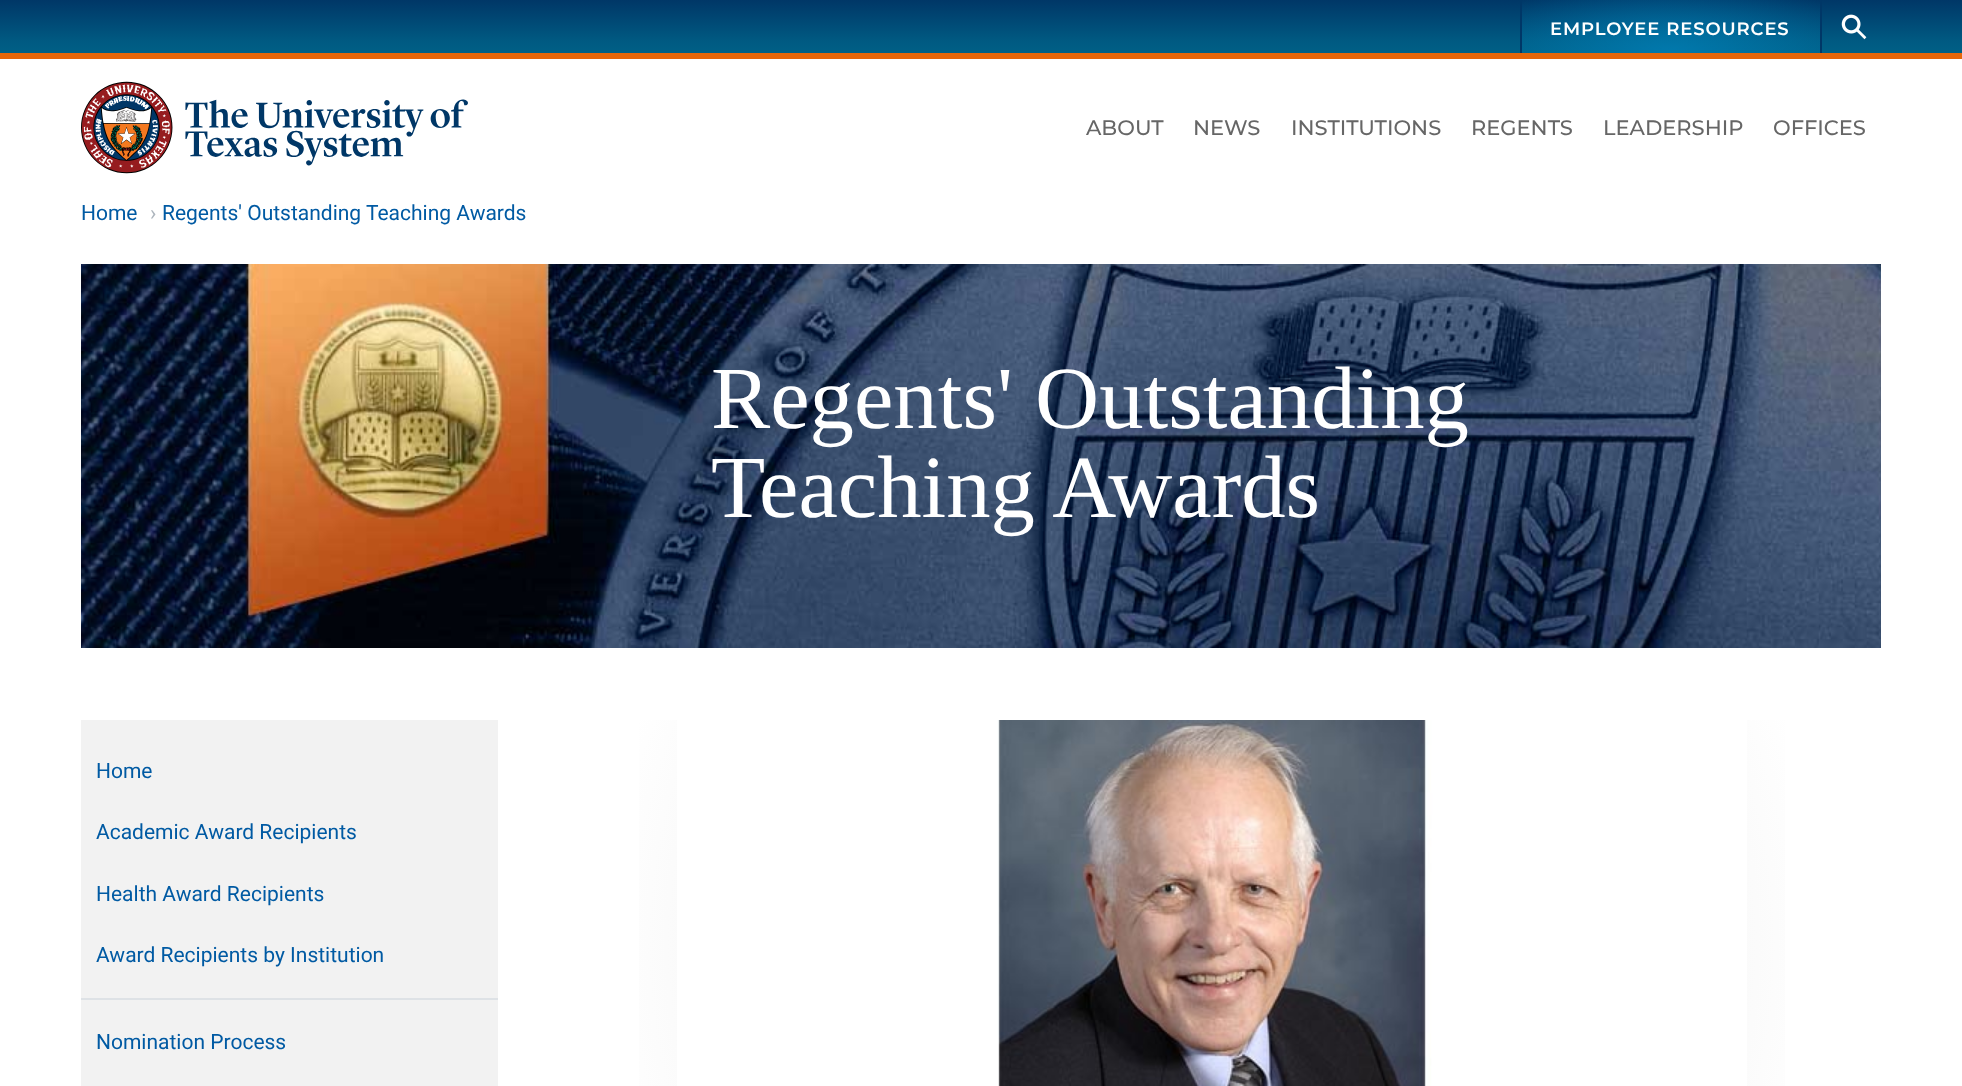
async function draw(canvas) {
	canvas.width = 1962;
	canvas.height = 1086;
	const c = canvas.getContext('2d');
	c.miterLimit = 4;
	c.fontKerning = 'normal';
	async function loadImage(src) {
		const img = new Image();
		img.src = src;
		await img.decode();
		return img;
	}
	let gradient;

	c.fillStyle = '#fff';
	c.fillRect(0, 0, 1962, 1086);
	gradient = c.createLinearGradient(981, 53, 981, 0);
	gradient.addColorStop(0, '#006086');
	gradient.addColorStop(0.22, '#005a82');
	gradient.addColorStop(1, '#003767');
	c.fillStyle = gradient;
	c.fillRect(0, 0, 1962, 53);
	c.fillStyle = '#e6660a';
	c.fillRect(0, 53, 1962, 6);
	gradient = c.createRadialGradient(1670, 151.12, 0, 1670, 151.12, 211);
	gradient.addColorStop(0, '#0179ad');
	gradient.addColorStop(1, '#0179ad00');
	c.fillStyle = gradient;
	c.beginPath();
	c.rect(1522, 0, 298, 53);
	c.save();
	c.clip();
	c.scale(1, 74 / 211);
	c.fillRect(0, 0, 1962, 3097);
	c.restore();
	c.fillStyle = '#003767';
	c.fillRect(1820, 0, 2, 53);
	c.fillRect(1520, 0, 2, 53);
	c.letterSpacing = '0.9px';
	c.font = '600 18px Montserrat';
	c.fillStyle = '#fff';
	c.fillText('EMPLOYEE RESOURCES', 1550, 35);
	c.drawImage(await loadImage('img1.png'), 1841, 14, 26, 26);
	c.drawImage(await loadImage('img2.png'), 81, 81, 387, 93);
	c.letterSpacing = '0px';
	c.font = '500 21px Montserrat';
	c.fillStyle = '#666';
	for (const [text, x, y] of [
		['ABOUT', 1086, 135],
		['NEWS', 1193, 135],
		['INSTITUTIONS', 1291, 135],
		['REGENTS', 1471, 135],
		['LEADERSHIP', 1603, 135],
		['OFFICES', 1773, 135],
	]) {
		c.fillText(text, x, y);
	}
	c.font = '21px Roboto';
	c.fillStyle = '#005aa3';
	c.fillText('Home', 81, 220);
	c.fillStyle = '#adb5bd';
	c.fillText('›', 150, 220);
	c.fillStyle = '#005aa3';
	c.fillText('Regents\' Outstanding Teaching Awards', 162, 220);
	c.drawImage(await loadImage('img3.png'), 81, 264, 1800, 384);
	c.font = '88.75px Liberation Serif';
	c.fillStyle = '#fff';
	c.fillText('Regents\' Outstanding', 711, 428);
	c.fillText('Teaching Awards', 711, 517);
	c.fillStyle = '#f2f2f2';
	c.fillRect(81, 720, 417, 366);
	c.font = '21px Roboto';
	c.fillStyle = '#005aa3';
	for (const [text, x, y] of [
		['Home', 96, 778],
		['Academic Award Recipients', 96, 839],
		['Health Award Recipients', 96, 901],
		['Award Recipients by Institution', 96, 962],
	]) {
		c.fillText(text, x, y);
	}
	c.fillStyle = '#dee2e6';
	c.fillRect(81, 998, 417, 2);
	c.fillStyle = '#005aa3';
	c.fillText('Nomination Process', 96, 1049);
	gradient = c.createRadialGradient(1212, 945, 0, 1212, 945, 706);
	gradient.addColorStop(0.53, '#f2f2f2');
	gradient.addColorStop(0.88, '#fff');
	c.fillStyle = gradient;
	c.fillRect(639, 720, 1146, 366);
	c.drawImage(await loadImage('img4.png'), 677, 720, 1070, 366);
}

draw(document.querySelector('canvas'));
